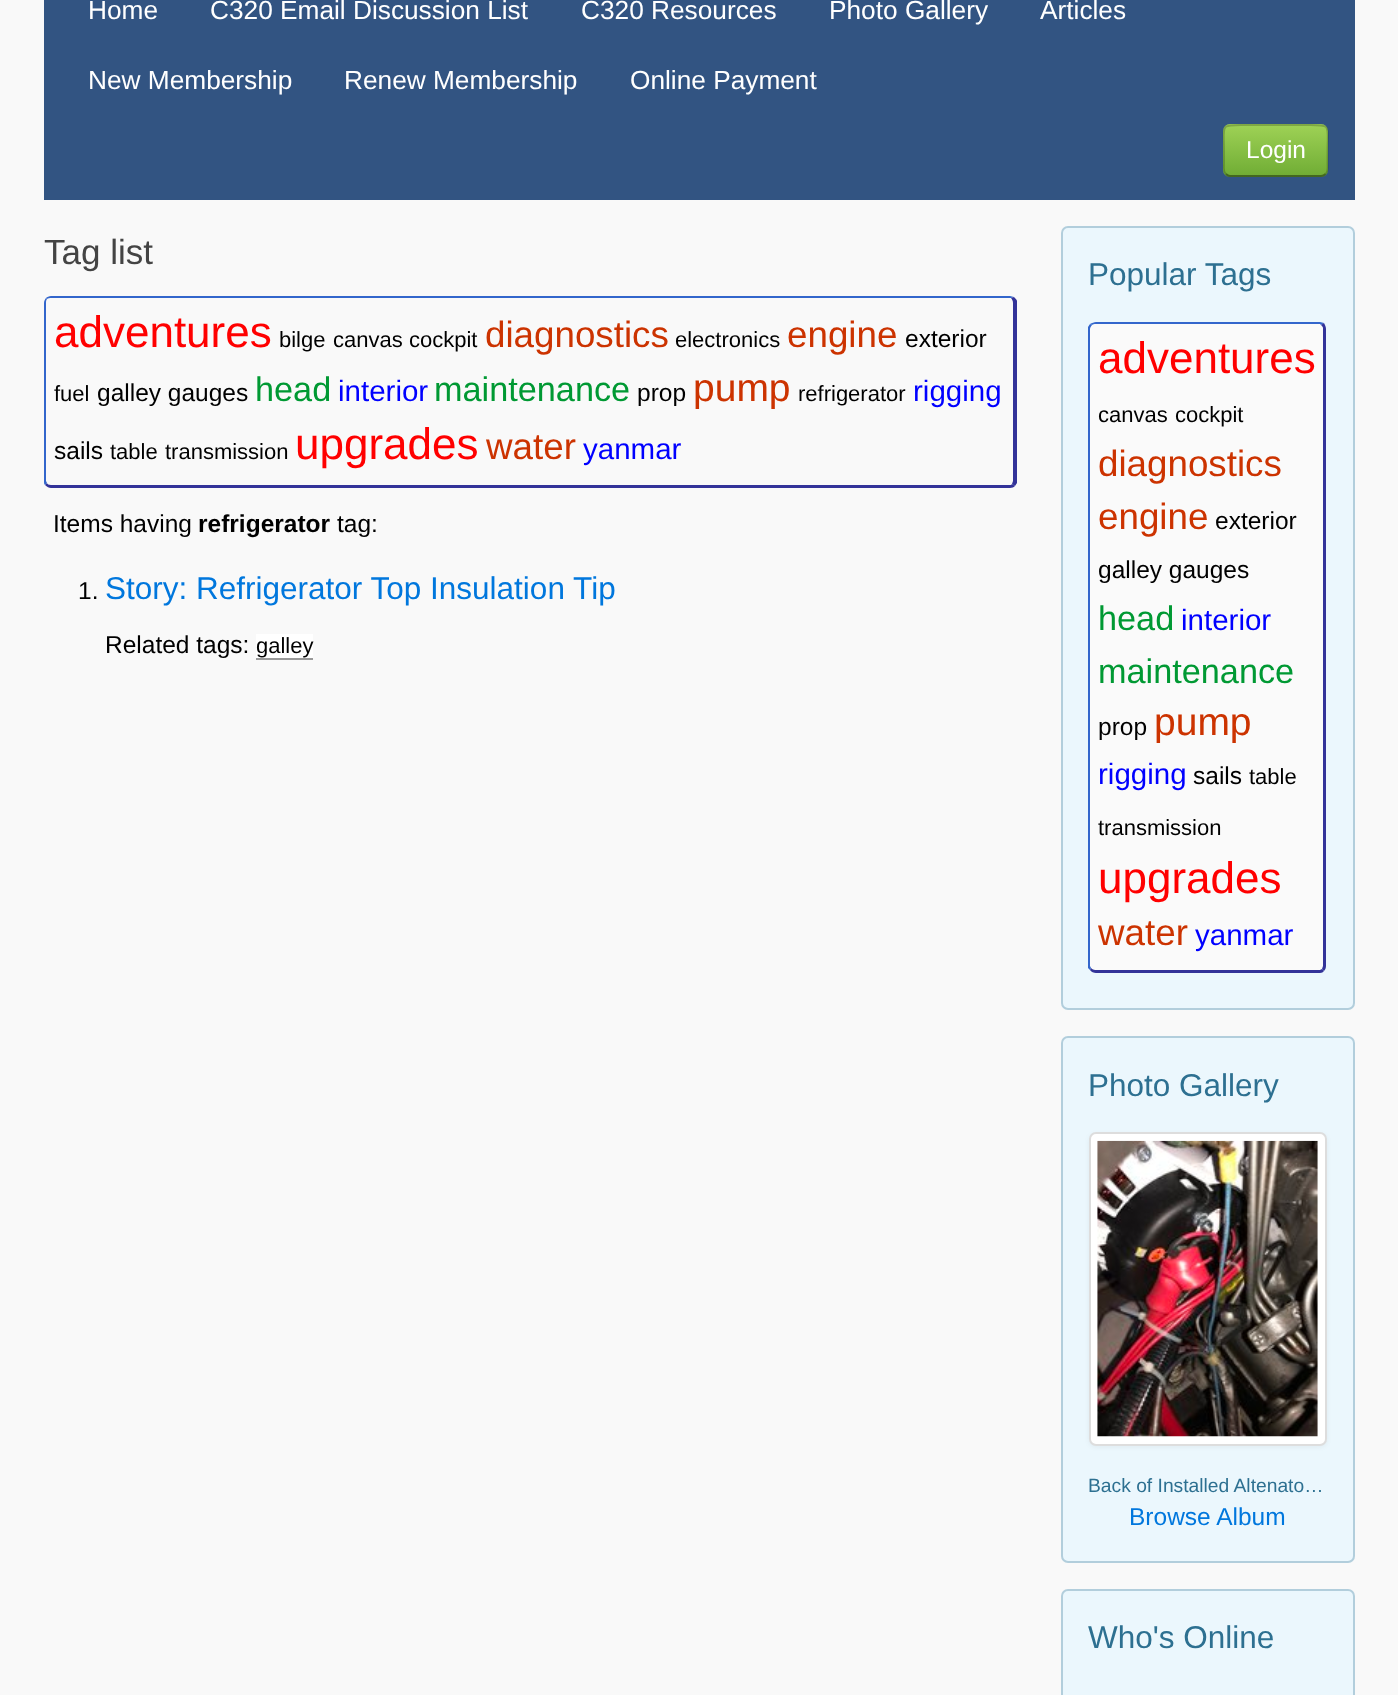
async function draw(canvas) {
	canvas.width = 1398;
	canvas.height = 1695;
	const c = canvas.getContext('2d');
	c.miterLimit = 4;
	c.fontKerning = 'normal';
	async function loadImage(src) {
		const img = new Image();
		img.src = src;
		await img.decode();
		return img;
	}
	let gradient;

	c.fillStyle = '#f9f9f9';
	c.fillRect(0, 0, 1398, 1695);
	c.fillStyle = '#325482';
	c.fillRect(44, 0, 1311, 200);
	c.font = '26.25px Liberation Sans';
	c.fillStyle = '#fff';
	for (const [text, x, y] of [
		['Home', 88, 19],
		['C320 Email Discussion List', 210, 19],
		['C320 Resources', 581, 19],
		['Photo Gallery', 829, 19],
		['Articles', 1040, 19],
		['New Membership', 88, 89],
		['Renew Membership', 344, 89],
		['Online Payment', 630, 89],
	]) {
		c.fillText(text, x, y);
	}
	gradient = c.createLinearGradient(1276, 124, 1276, 177);
	gradient.addColorStop(0, '#9fd256');
	gradient.addColorStop(1, '#6fac34');
	c.fillStyle = gradient;
	c.beginPath();
	c.roundRect(1223, 124, 105, 53, 7);
	c.fill();
	c.beginPath();
	c.moveTo(1325.5, 174);
	c.bezierCurveTo(1324.5, 175, 1323, 176, 1321, 176);
	c.lineTo(1230, 176);
	c.bezierCurveTo(1228.5, 176, 1227, 175, 1226, 174);
	c.strokeStyle = '#00000066';
	c.lineWidth = 1.8;
	c.stroke();
	c.beginPath();
	c.moveTo(1226, 174);
	c.bezierCurveTo(1223, 171.5, 1224, 166.5, 1224, 163.5);
	c.lineTo(1224, 150.5);
	c.bezierCurveTo(1224, 123.5, 1219.5, 125, 1245.5, 125);
	c.lineTo(1306, 125);
	c.bezierCurveTo(1332, 125, 1327.5, 123.5, 1327.5, 150.5);
	c.lineTo(1327.5, 163.5);
	c.bezierCurveTo(1327.5, 166.5, 1328.5, 171.5, 1325.5, 174);
	c.strokeStyle = '#00000033';
	c.stroke();
	c.font = '24.5px Liberation Sans';
	c.fillStyle = '#fff';
	c.fillText('Login', 1246, 158);
	c.font = '35px Liberation Sans';
	c.fillStyle = '#444';
	c.fillText('Tag list', 44, 264);
	c.fillStyle = '#36c';
	c.beginPath();
	c.moveTo(51, 296);
	c.bezierCurveTo(49, 296, 47, 297, 46, 298);
	c.lineTo(47, 299);
	c.bezierCurveTo(48, 298, 50, 298, 51, 298);
	c.lineTo(1010, 298);
	c.lineTo(1011, 298);
	c.lineTo(1014, 297);
	c.lineTo(1010, 296);
	c.closePath();
	c.fill();
	c.fillStyle = '#339';
	c.beginPath();
	c.moveTo(1014, 297);
	c.bezierCurveTo(1015, 298, 1017, 300, 1017, 301);
	c.lineTo(1017, 483);
	c.lineTo(1015, 486);
	c.lineTo(1012, 484);
	c.lineTo(1013, 481);
	c.lineTo(1013, 303);
	c.bezierCurveTo(1013, 301, 1012, 299, 1011, 298);
	c.closePath();
	c.fill();
	c.beginPath();
	c.moveTo(1015, 486);
	c.bezierCurveTo(1014, 487, 1012, 488, 1010, 488);
	c.lineTo(51, 488);
	c.bezierCurveTo(49, 488, 47, 487, 45, 485);
	c.lineTo(47, 483);
	c.bezierCurveTo(47, 484, 49, 485, 51, 485);
	c.lineTo(1011, 485);
	c.lineTo(1012, 484);
	c.closePath();
	c.fill();
	c.fillStyle = '#36c';
	c.beginPath();
	c.moveTo(46, 298);
	c.bezierCurveTo(45, 299, 44, 301, 44, 303);
	c.lineTo(44, 481);
	c.bezierCurveTo(44, 483, 44, 484, 45, 485);
	c.lineTo(47, 483);
	c.lineTo(46, 481);
	c.lineTo(46, 303);
	c.bezierCurveTo(46, 302, 46, 300, 47, 299);
	c.closePath();
	c.fill();
	c.font = '44px Liberation Sans';
	c.fillStyle = '#f00';
	c.fillText('adventures', 54, 347);
	c.font = '22px Liberation Sans';
	c.fillStyle = '#000';
	for (const [text, x, y] of [
		['bilge', 279, 347],
		['canvas', 333, 347],
		['cockpit', 409, 347],
	]) {
		c.fillText(text, x, y);
	}
	c.font = '36.75px Liberation Sans';
	c.fillStyle = '#c30';
	c.fillText('diagnostics', 485, 347);
	c.font = '22px Liberation Sans';
	c.fillStyle = '#000';
	c.fillText('electronics', 675, 347);
	c.font = '36.75px Liberation Sans';
	c.fillStyle = '#c30';
	c.fillText('engine', 787, 347);
	c.font = '24.5px Liberation Sans';
	c.fillStyle = '#000';
	c.fillText('exterior', 905, 347);
	c.font = '22px Liberation Sans';
	c.fillText('fuel', 54, 401);
	c.font = '24.5px Liberation Sans';
	c.fillText('galley gauges', 97, 401);
	c.font = '34.25px Liberation Sans';
	c.fillStyle = '#093';
	c.fillText('head', 255, 401);
	c.font = '29.5px Liberation Sans';
	c.fillStyle = '#00f';
	c.fillText('interior', 338, 401);
	c.font = '34.25px Liberation Sans';
	c.fillStyle = '#093';
	c.fillText('maintenance', 434, 401);
	c.font = '24.5px Liberation Sans';
	c.fillStyle = '#000';
	c.fillText('prop', 637, 401);
	c.font = '39px Liberation Sans';
	c.fillStyle = '#c30';
	c.fillText('pump', 693, 401);
	c.font = '22px Liberation Sans';
	c.fillStyle = '#000';
	c.fillText('refrigerator', 798, 401);
	c.font = '29.5px Liberation Sans';
	c.fillStyle = '#00f';
	c.fillText('rigging', 913, 401);
	c.font = '24.5px Liberation Sans';
	c.fillStyle = '#000';
	c.fillText('sails', 54, 459);
	c.font = '22px Liberation Sans';
	c.fillText('table', 110, 459);
	c.fillText('transmission', 165, 459);
	c.font = '44px Liberation Sans';
	c.fillStyle = '#f00';
	c.fillText('upgrades', 295, 459);
	c.font = '36.75px Liberation Sans';
	c.fillStyle = '#c30';
	c.fillText('water', 486, 459);
	c.font = '29.5px Liberation Sans';
	c.fillStyle = '#00f';
	c.fillText('yanmar', 583, 459);
	c.font = '24.5px Liberation Sans';
	c.fillStyle = '#000';
	c.fillText('Items having', 53, 532);
	c.font = 'bold 24.5px Liberation Sans';
	c.fillText('refrigerator', 198, 532);
	c.font = '24.5px Liberation Sans';
	c.fillText('tag:', 337, 532);
	c.fillText('1.', 78, 599);
	c.font = '31.5px Liberation Sans';
	c.fillStyle = '#07d';
	c.fillText('Story: Refrigerator Top Insulation Tip', 105, 599);
	c.font = '24.5px Liberation Sans';
	c.fillStyle = '#000';
	c.fillText('Related tags:', 105, 653);
	c.fillStyle = '#fff';
	c.fillRect(256, 634, 57, 24);
	c.font = '22px Liberation Sans';
	c.fillStyle = '#000';
	c.fillText('galley', 256, 653);
	c.fillStyle = '#999';
	c.fillRect(256, 658, 57, 2);
	c.fillStyle = '#ebf7fd';
	c.beginPath();
	c.roundRect(1061, 226, 294, 784, 7);
	c.fill();
	c.beginPath();
	c.roundRect(1062, 227, 292, 782, 6);
	c.strokeStyle = '#2d70914d';
	c.lineWidth = 2;
	c.stroke();
	c.font = '31.5px Liberation Sans';
	c.fillStyle = '#2d7091';
	c.fillText('Popular Tags', 1088, 285);
	c.fillStyle = '#fafafa';
	c.beginPath();
	c.moveTo(1096, 324);
	c.lineTo(1320, 324);
	c.bezierCurveTo(1321, 324, 1323, 326, 1323, 329);
	c.lineTo(1323, 966);
	c.bezierCurveTo(1323, 968, 1321, 970, 1320, 970);
	c.lineTo(1096, 970);
	c.bezierCurveTo(1093, 970, 1090, 968, 1090, 966);
	c.lineTo(1090, 329);
	c.bezierCurveTo(1090, 326, 1093, 324, 1096, 324);
	c.closePath();
	c.fill();
	c.fillStyle = '#36c';
	c.beginPath();
	c.moveTo(1096, 322);
	c.bezierCurveTo(1094, 322, 1092, 323, 1090, 324);
	c.lineTo(1092, 325);
	c.bezierCurveTo(1093, 324, 1094, 324, 1096, 324);
	c.lineTo(1320, 324);
	c.lineTo(1321, 325);
	c.lineTo(1324, 323);
	c.bezierCurveTo(1323, 323, 1321, 322, 1320, 322);
	c.closePath();
	c.fill();
	c.fillStyle = '#339';
	c.beginPath();
	c.moveTo(1324, 323);
	c.bezierCurveTo(1325, 325, 1326, 327, 1326, 329);
	c.lineTo(1326, 966);
	c.bezierCurveTo(1326, 968, 1325, 970, 1324, 971);
	c.lineTo(1322, 969);
	c.lineTo(1323, 966);
	c.lineTo(1323, 328);
	c.bezierCurveTo(1323, 327, 1322, 326, 1321, 325);
	c.closePath();
	c.fill();
	c.beginPath();
	c.moveTo(1096, 973);
	c.lineTo(1320, 973);
	c.bezierCurveTo(1322, 973, 1323, 972, 1324, 971);
	c.lineTo(1322, 969);
	c.lineTo(1320, 970);
	c.lineTo(1095, 970);
	c.bezierCurveTo(1094, 970, 1092, 969, 1091, 968);
	c.lineTo(1090, 970);
	c.bezierCurveTo(1091, 972, 1094, 973, 1096, 973);
	c.closePath();
	c.fill();
	c.fillStyle = '#36c';
	c.beginPath();
	c.moveTo(1088, 327);
	c.lineTo(1090, 324);
	c.lineTo(1092, 325);
	c.bezierCurveTo(1091, 326, 1090, 328, 1090, 329);
	c.lineTo(1090, 966);
	c.lineTo(1091, 968);
	c.lineTo(1090, 970);
	c.lineTo(1088, 968);
	c.closePath();
	c.fill();
	c.font = '44px Liberation Sans';
	c.fillStyle = '#f00';
	c.fillText('adventures', 1098, 373);
	c.font = '22px Liberation Sans';
	c.fillStyle = '#000';
	c.fillText('canvas', 1098, 422);
	c.fillText('cockpit', 1175, 422);
	c.font = '36.75px Liberation Sans';
	c.fillStyle = '#c30';
	c.fillText('diagnostics', 1098, 476);
	c.fillText('engine', 1098, 529);
	c.font = '24.5px Liberation Sans';
	c.fillStyle = '#000';
	c.fillText('exterior', 1215, 529);
	c.fillText('galley gauges', 1098, 578);
	c.font = '34.25px Liberation Sans';
	c.fillStyle = '#093';
	c.fillText('head', 1098, 630);
	c.font = '29.5px Liberation Sans';
	c.fillStyle = '#00f';
	c.fillText('interior', 1181, 630);
	c.font = '34.25px Liberation Sans';
	c.fillStyle = '#093';
	c.fillText('maintenance', 1098, 683);
	c.font = '24.5px Liberation Sans';
	c.fillStyle = '#000';
	c.fillText('prop', 1098, 735);
	c.font = '39px Liberation Sans';
	c.fillStyle = '#c30';
	c.fillText('pump', 1154, 735);
	c.font = '29.5px Liberation Sans';
	c.fillStyle = '#00f';
	c.fillText('rigging', 1098, 784);
	c.font = '24.5px Liberation Sans';
	c.fillStyle = '#000';
	c.fillText('sails', 1193, 784);
	c.font = '22px Liberation Sans';
	c.fillText('table', 1249, 784);
	c.fillText('transmission', 1098, 835);
	c.font = '44px Liberation Sans';
	c.fillStyle = '#f00';
	c.fillText('upgrades', 1098, 893);
	c.font = '36.75px Liberation Sans';
	c.fillStyle = '#c30';
	c.fillText('water', 1098, 945);
	c.font = '29.5px Liberation Sans';
	c.fillStyle = '#00f';
	c.fillText('yanmar', 1195, 945);
	c.fillStyle = '#ebf7fd';
	c.beginPath();
	c.roundRect(1061, 1036, 294, 527, 7);
	c.fill();
	c.beginPath();
	c.roundRect(1062, 1037, 292, 525, 6);
	c.stroke();
	c.font = '31.5px Liberation Sans';
	c.fillStyle = '#2d7091';
	c.fillText('Photo Gallery', 1088, 1096);
	c.fillStyle = '#0000000d';
	c.filter = 'blur(2.5px)';
	c.beginPath();
	c.roundRect(1089, 1134, 238, 313, 7);
	c.fill();
	c.filter = 'none';
	c.fillStyle = '#fff';
	c.beginPath();
	c.roundRect(1090, 1133, 236, 312, 6);
	c.fill();
	c.strokeStyle = '#ddd';
	c.stroke();
	c.drawImage(await loadImage('img1.png'), 1097, 1140, 221, 297);
	c.font = '19.25px Liberation Sans';
	c.fillStyle = '#2d7091';
	c.fillText('Back of Installed Altenato…', 1088, 1492);
	c.font = '24.5px Liberation Sans';
	c.fillStyle = '#07d';
	c.fillText('Browse Album', 1129, 1525);
	c.fillStyle = '#ebf7fd';
	c.beginPath();
	c.roundRect(1061, 1589, 294, 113, 7);
	c.fill();
	c.beginPath();
	c.roundRect(1062, 1590, 292, 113, 6);
	c.strokeStyle = '#2d70914d';
	c.stroke();
	c.font = '31.5px Liberation Sans';
	c.fillStyle = '#2d7091';
	c.fillText('Who\'s Online', 1088, 1648);
}

draw(document.querySelector('canvas'));
